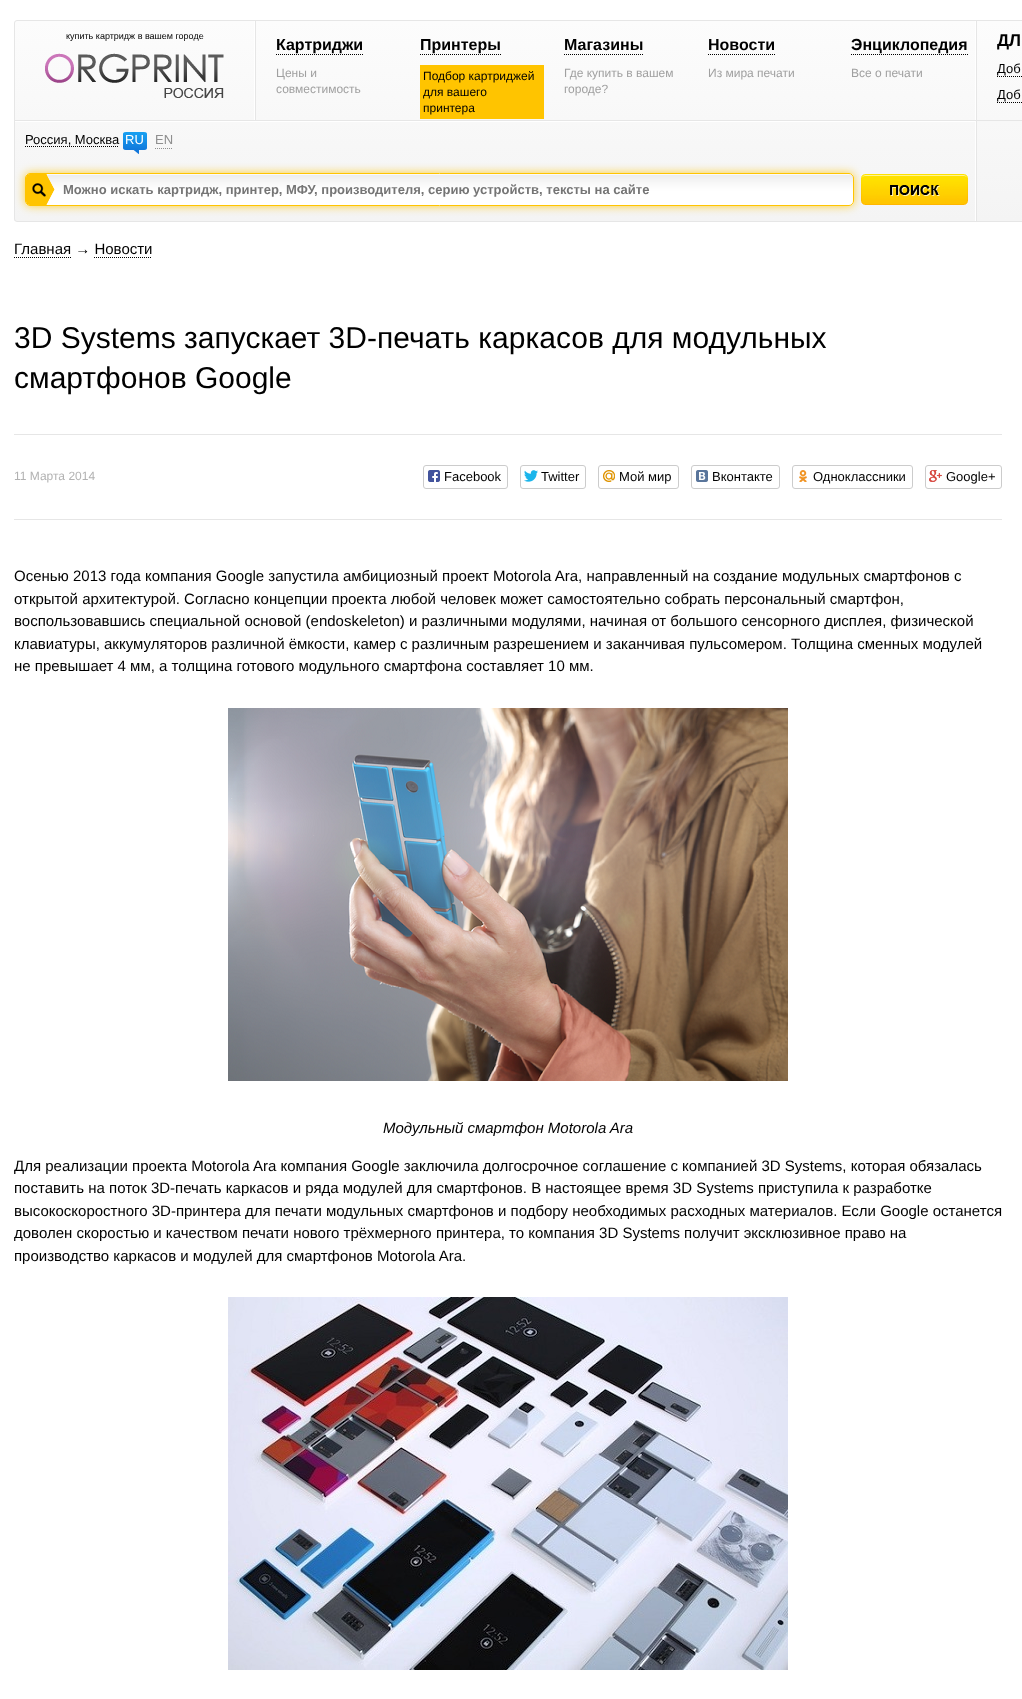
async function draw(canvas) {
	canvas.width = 1022;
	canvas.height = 1699;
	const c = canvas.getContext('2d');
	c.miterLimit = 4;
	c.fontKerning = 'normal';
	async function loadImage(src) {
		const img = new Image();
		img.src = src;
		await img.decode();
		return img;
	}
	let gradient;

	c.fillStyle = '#fff';
	c.fillRect(0, 0, 1022, 1699);
	c.save();
	c.beginPath();
	c.roundRect(14, 20, 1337, 202, 3);
	c.clip();
	gradient = c.createLinearGradient(683, 21, 683, 221);
	gradient.addColorStop(0, '#fcfcfc');
	gradient.addColorStop(1, '#f4f4f4');
	c.fillStyle = gradient;
	c.fillRect(14, 21, 1008, 200);
	c.restore();
	c.beginPath();
	c.roundRect(14.5, 20.5, 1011, 201, 2.5);
	c.strokeStyle = '#e6e6e6';
	c.stroke();
	for (const [x, y, w, h, color] of [
		[254, 21, 1, 100, '#fff'],
		[15, 121, 961, 1, '#fff'],
		[975, 21, 1, 200, '#fff'],
		[15, 120, 1007, 1, '#e6e6e6'],
	]) {
		c.fillStyle = color;
		c.fillRect(x, y, w, h);
	}
	c.font = '9px Liberation Sans';
	c.fillStyle = '#000';
	c.fillText('купить картридж в вашем городе', 66, 39);
	c.drawImage(await loadImage('img1.png'), 45, 53, 179, 45);
	c.fillStyle = '#e6e6e6';
	c.fillRect(255, 21, 1, 100);
	c.beginPath();
	c.moveTo(276, 54.5);
	c.lineTo(363, 54.5);
	c.strokeStyle = '#000';
	c.setLineDash([1, 1]);
	c.stroke();
	c.font = 'bold 16px Liberation Sans';
	c.fillStyle = '#000';
	c.fillText('Картриджи', 276, 50);
	c.font = '12px Liberation Sans';
	c.fillStyle = '#a0a0a0';
	c.fillText('Цены и', 276, 77);
	c.fillText('совместимость', 276, 93);
	c.beginPath();
	c.moveTo(420, 54.5);
	c.lineTo(501, 54.5);
	c.stroke();
	c.font = 'bold 16px Liberation Sans';
	c.fillStyle = '#000';
	c.fillText('Принтеры', 420, 50);
	c.fillStyle = '#ffc400';
	c.fillRect(420, 65, 124, 54);
	c.font = '12px Liberation Sans';
	c.fillStyle = '#000';
	for (const [text, x, y] of [
		['Подбор картриджей', 423, 80],
		['для вашего', 423, 96],
		['принтера', 423, 112],
	]) {
		c.fillText(text, x, y);
	}
	c.beginPath();
	c.moveTo(564, 54.5);
	c.lineTo(643, 54.5);
	c.stroke();
	c.font = 'bold 16px Liberation Sans';
	c.fillText('Магазины', 564, 50);
	c.font = '12px Liberation Sans';
	c.fillStyle = '#a0a0a0';
	c.fillText('Где купить в вашем', 564, 77);
	c.fillText('городе?', 564, 93);
	c.beginPath();
	c.moveTo(708, 54.5);
	c.lineTo(775, 54.5);
	c.stroke();
	c.font = 'bold 16px Liberation Sans';
	c.fillStyle = '#000';
	c.fillText('Новости', 708, 50);
	c.font = '12px Liberation Sans';
	c.fillStyle = '#a0a0a0';
	c.fillText('Из мира печати', 708, 77);
	c.beginPath();
	c.moveTo(851, 54.5);
	c.lineTo(968, 54.5);
	c.stroke();
	c.font = 'bold 16px Liberation Sans';
	c.fillStyle = '#000';
	c.fillText('Энциклопедия', 851, 50);
	c.font = '12px Liberation Sans';
	c.fillStyle = '#a0a0a0';
	c.fillText('Все о печати', 851, 77);
	c.beginPath();
	c.moveTo(25, 146.5);
	c.lineTo(119, 146.5);
	c.stroke();
	c.font = '13px Liberation Sans';
	c.fillStyle = '#000';
	c.fillText('Россия, Москва', 25, 144);
	c.drawImage(await loadImage('img2.png'), 123, 132, 24, 22);
	c.fillStyle = '#fff';
	c.fillText('RU', 125, 144);
	c.beginPath();
	c.moveTo(155, 148.5);
	c.lineTo(173, 148.5);
	c.strokeStyle = '#8f8f8f';
	c.stroke();
	c.fillStyle = '#8f8f8f';
	c.fillText('EN', 155, 144);
	c.fillStyle = '#ffc400cc';
	c.filter = 'blur(5px)';
	c.beginPath();
	c.roundRect(25, 173, 829, 33, 5);
	c.fill();
	c.filter = 'none';
	c.fillStyle = '#fff';
	c.beginPath();
	c.roundRect(25, 173, 829, 33, 5);
	c.fill();
	c.drawImage(await loadImage('img3.png'), 25, 174, 829, 29);
	c.beginPath();
	c.roundRect(25.5, 173.5, 828, 32, 4.5);
	c.strokeStyle = '#ffc400';
	c.setLineDash([]);
	c.stroke();
	c.drawImage(await loadImage('img4.png'), 26, 174, 29, 31);
	c.font = 'bold 13px Liberation Sans';
	c.fillStyle = '#757575';
	c.fillText('Можно искать картридж, принтер, МФУ, производителя, серию устройств, тексты на сайте', 63, 194);
	c.drawImage(await loadImage('img5.png'), 861, 174, 107, 31);
	c.fillStyle = '#e6e6e6';
	c.fillRect(976, 21, 1, 200);
	c.font = 'bold 17px Liberation Sans';
	c.fillStyle = '#000';
	c.fillText('ДЛ', 997, 46);
	c.beginPath();
	c.moveTo(997, 76.5);
	c.lineTo(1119, 76.5);
	c.strokeStyle = '#000';
	c.setLineDash([1, 1]);
	c.stroke();
	c.font = '13px Liberation Sans';
	c.fillText('Доб', 997, 73);
	c.beginPath();
	c.moveTo(997, 102.5);
	c.lineTo(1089, 102.5);
	c.stroke();
	c.fillText('Доб', 997, 99);
	c.beginPath();
	c.moveTo(14, 257.5);
	c.lineTo(71, 257.5);
	c.stroke();
	c.font = '15px Liberation Sans';
	c.fillText('Главная → Новости', 14, 254);
	c.beginPath();
	c.moveTo(94, 257.5);
	c.lineTo(152, 257.5);
	c.stroke();
	c.font = '30px Liberation Sans';
	c.fillText('3D Systems запускает 3D-печать каркасов для модульных', 14, 348);
	c.fillText('смартфонов Google', 14, 388);
	c.fillStyle = '#e6e6e6';
	c.fillRect(14, 434, 988, 1);
	c.fillRect(14, 519, 988, 1);
	c.font = '12px Liberation Sans';
	c.fillStyle = '#b2b2b2';
	c.fillText('11 Марта 2014', 14, 480);
	c.beginPath();
	c.roundRect(423.5, 465.5, 84, 23, 2.5);
	c.strokeStyle = '#ccc';
	c.setLineDash([]);
	c.stroke();
	c.drawImage(await loadImage('img6.png'), 428, 470, 12, 12);
	c.font = '13px Liberation Sans';
	c.fillStyle = '#000';
	c.fillText('Facebook', 444, 481);
	c.beginPath();
	c.roundRect(520.5, 465.5, 65, 23, 2.5);
	c.stroke();
	c.drawImage(await loadImage('img7.png'), 524, 470, 14, 12);
	c.fillText('Twitter', 541, 481);
	c.beginPath();
	c.roundRect(598.5, 465.5, 80, 23, 2.5);
	c.stroke();
	c.drawImage(await loadImage('img8.png'), 603, 470, 12, 12);
	c.fillText('Мой мир', 619, 481);
	c.beginPath();
	c.roundRect(691.5, 465.5, 88, 23, 2.5);
	c.stroke();
	c.drawImage(await loadImage('img9.png'), 696, 470, 12, 12);
	c.fillText('Вконтакте', 712, 481);
	c.beginPath();
	c.roundRect(792.5, 465.5, 120, 23, 2.5);
	c.stroke();
	c.drawImage(await loadImage('img10.png'), 799, 470, 8, 12);
	c.fillText('Одноклассники', 813, 481);
	c.beginPath();
	c.roundRect(925.5, 465.5, 76, 23, 2.5);
	c.stroke();
	c.drawImage(await loadImage('img11.png'), 929, 470, 13, 12);
	c.fillText('Google+', 946, 481);
	c.font = '15px Liberation Sans';
	for (const [text, x, y] of [
		['Осенью 2013 года компания Google запустила амбициозный проект Motorola Ara, направленный на создание модульных смартфонов с', 14, 581],
		['открытой архитектурой. Согласно концепции проекта любой человек может самостоятельно собрать персональный смартфон,', 14, 604],
		['воспользовавшись специальной основой (endoskeleton) и различными модулями, начиная от большого сенсорного дисплея, физической', 14, 626],
		['клавиатуры, аккумуляторов различной ёмкости, камер с различным разрешением и заканчивая пульсомером. Толщина сменных модулей', 14, 649],
		['не превышает 4 мм, а толщина готового модульного смартфона составляет 10 мм.', 14, 671],
	]) {
		c.fillText(text, x, y);
	}
	c.drawImage(await loadImage('img12.png'), 228, 708, 560, 373);
	c.font = 'italic 15px Liberation Sans';
	c.fillText('Модульный смартфон Motorola Ara', 383, 1133);
	c.font = '15px Liberation Sans';
	for (const [text, x, y] of [
		['Для реализации проекта Motorola Ara компания Google заключила долгосрочное соглашение с компанией 3D Systems, которая обязалась', 14, 1171],
		['поставить на поток 3D-печать каркасов и ряда модулей для смартфонов. В настоящее время 3D Systems приступила к разработке', 14, 1193],
		['высокоскоростного 3D-принтера для печати модульных смартфонов и подбору необходимых расходных материалов. Если Google останется', 14, 1216],
		['доволен скоростью и качеством печати нового трёхмерного принтера, то компания 3D Systems получит эксклюзивное право на', 14, 1238],
		['производство каркасов и модулей для смартфонов Motorola Ara.', 14, 1261],
	]) {
		c.fillText(text, x, y);
	}
	c.drawImage(await loadImage('img13.png'), 228, 1297, 560, 373);
}

draw(document.querySelector('canvas'));
